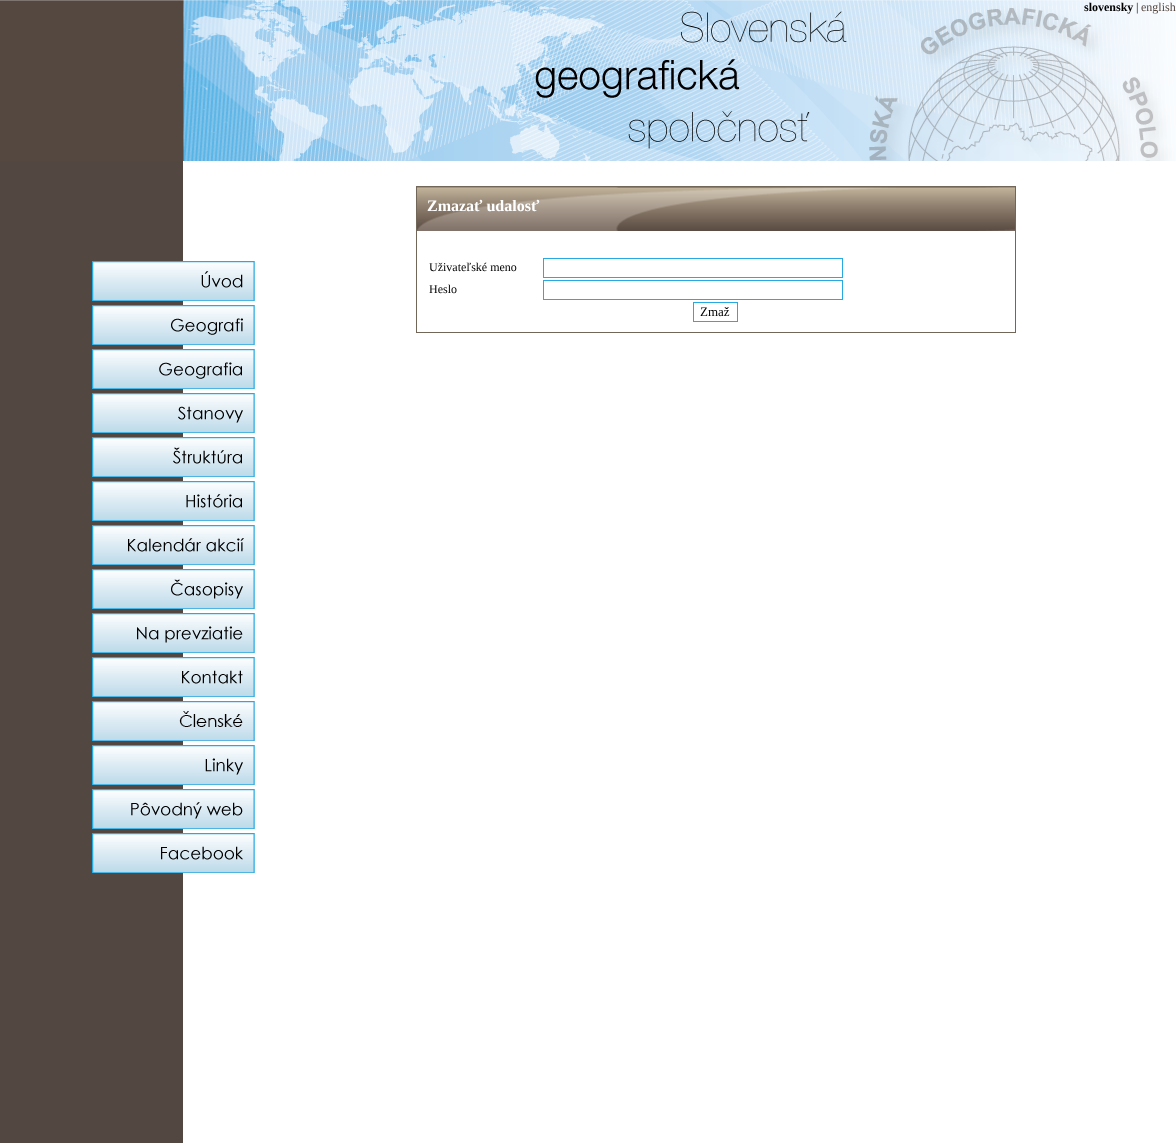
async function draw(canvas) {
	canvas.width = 1176;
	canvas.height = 1143;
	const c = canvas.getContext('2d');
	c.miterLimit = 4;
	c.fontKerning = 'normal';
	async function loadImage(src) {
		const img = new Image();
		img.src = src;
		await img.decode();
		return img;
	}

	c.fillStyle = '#534741';
	c.fillRect(0, 0, 1176, 1143);
	c.drawImage(await loadImage('img1.png'), 0, 0, 255, 161);
	c.drawImage(await loadImage('img2.png'), 255, 0, 921, 161);
	c.font = 'bold 12px Liberation Serif';
	c.fillStyle = '#000';
	c.fillText('slovensky', 1084, 11);
	c.font = '12px Liberation Serif';
	c.fillText('|', 1136, 11);
	c.fillStyle = '#534741';
	c.fillText('english', 1141, 11);
	c.fillStyle = '#fff';
	c.fillRect(183, 161, 993, 982);
	c.drawImage(await loadImage('img3.png'), 92, 261, 163, 40);
	c.drawImage(await loadImage('img4.png'), 92, 305, 163, 40);
	c.drawImage(await loadImage('img5.png'), 92, 349, 163, 40);
	c.drawImage(await loadImage('img6.png'), 92, 393, 163, 40);
	c.drawImage(await loadImage('img7.png'), 92, 437, 163, 40);
	c.drawImage(await loadImage('img8.png'), 92, 481, 163, 40);
	c.drawImage(await loadImage('img9.png'), 92, 525, 163, 40);
	c.drawImage(await loadImage('img10.png'), 92, 569, 163, 40);
	c.drawImage(await loadImage('img11.png'), 92, 613, 163, 40);
	c.drawImage(await loadImage('img12.png'), 92, 657, 163, 40);
	c.drawImage(await loadImage('img13.png'), 92, 701, 163, 40);
	c.drawImage(await loadImage('img14.png'), 92, 745, 163, 40);
	c.drawImage(await loadImage('img15.png'), 92, 789, 163, 40);
	c.drawImage(await loadImage('img16.png'), 92, 833, 163, 40);
	for (const [x, y, w, h, color] of [
		[416, 186, 600, 1, '#726658'],
		[1015, 186, 1, 147, '#726658'],
		[416, 332, 600, 1, '#726658'],
		[416, 186, 1, 147, '#726658'],
	]) {
		c.fillStyle = color;
		c.fillRect(x, y, w, h);
	}
	c.drawImage(await loadImage('img17.png'), 417, 187, 598, 44);
	c.font = 'bold 16px Liberation Serif';
	c.fillStyle = '#fff';
	c.fillText('Zmazať udalosť', 427, 211);
	c.font = '12px Liberation Serif';
	c.fillStyle = '#000';
	c.fillText('Uživateľské meno', 429, 271);
	c.strokeStyle = '#27aae1';
	c.strokeRect(543.5, 258.5, 299, 19);
	c.fillText('Heslo', 429, 293);
	c.strokeRect(543.5, 280.5, 299, 19);
	c.strokeRect(693.5, 302.5, 44, 19);
	c.font = '13px Liberation Serif';
	c.fillText('Zmaž', 700, 316);
}

draw(document.querySelector('canvas'));
